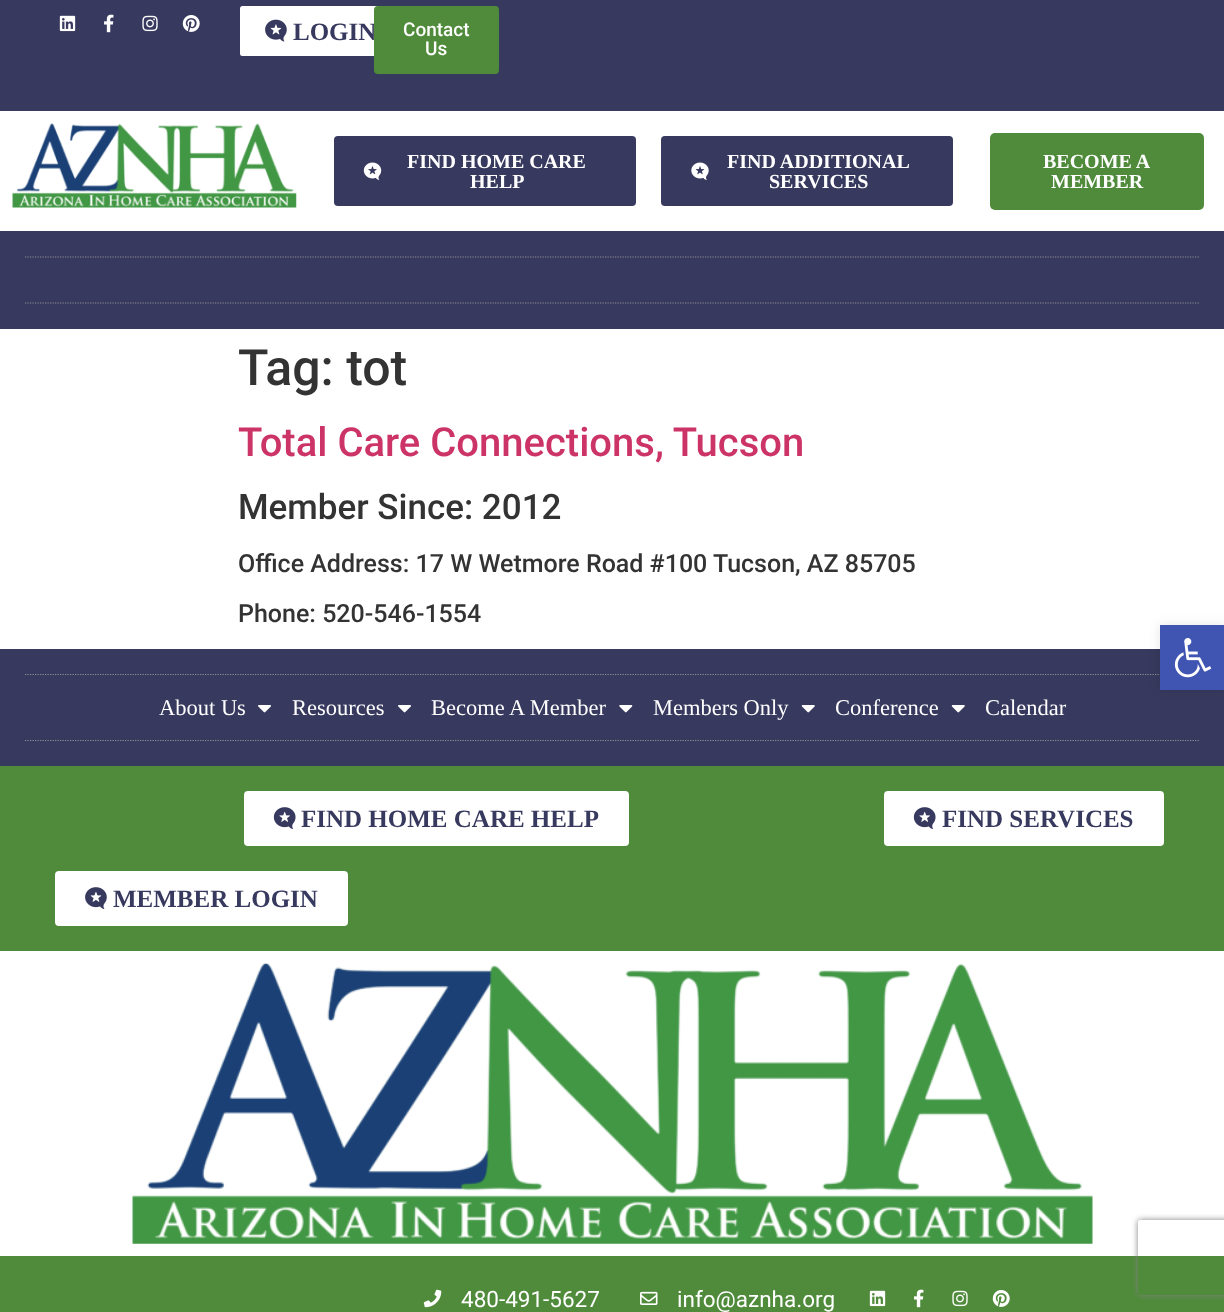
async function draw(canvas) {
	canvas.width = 1224;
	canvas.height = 1312;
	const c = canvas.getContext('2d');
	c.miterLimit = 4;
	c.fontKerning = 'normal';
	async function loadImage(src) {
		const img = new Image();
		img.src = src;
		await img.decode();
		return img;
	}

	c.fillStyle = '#fff';
	c.fillRect(0, 0, 1224, 1312);
	c.fillStyle = '#37395e';
	c.fillRect(0, 0, 1224, 111);
	c.drawImage(await loadImage('img1.png'), 59, 15, 17, 17);
	c.drawImage(await loadImage('img2.png'), 104, 14, 10, 19);
	c.drawImage(await loadImage('img3.png'), 142, 15, 16, 17);
	c.drawImage(await loadImage('img4.png'), 182, 15, 18, 17);
	c.fillStyle = '#fff';
	c.beginPath();
	c.roundRect(240, 6, 161, 50, 2.5);
	c.fill();
	c.drawImage(await loadImage('img5.png'), 265, 19, 22, 23);
	c.font = 'bold 25px Liberation Serif';
	c.fillStyle = '#37395e';
	c.fillText('LOGIN', 293, 40);
	c.fillStyle = '#4f8b3a';
	c.beginPath();
	c.roundRect(374, 6, 125, 68, 4);
	c.fill();
	c.font = '500 19px Roboto';
	c.fillStyle = '#fff';
	c.fillText('Contact', 403, 36);
	c.fillText('Us', 425, 55);
	c.drawImage(await loadImage('img6.png'), 12, 123, 285, 85);
	c.fillStyle = '#37395e';
	c.beginPath();
	c.roundRect(334, 136, 302, 70, 4);
	c.fill();
	c.drawImage(await loadImage('img7.png'), 363, 162, 19, 18);
	c.font = 'bold 20px Liberation Serif';
	c.fillStyle = '#fff';
	c.fillText('FIND HOME CARE', 407, 168);
	c.fillText('HELP', 470, 188);
	c.fillStyle = '#37395e';
	c.beginPath();
	c.roundRect(661, 136, 292, 70, 4);
	c.fill();
	c.drawImage(await loadImage('img8.png'), 691, 162, 18, 18);
	c.fillStyle = '#fff';
	c.fillText('FIND ADDITIONAL', 727, 168);
	c.fillText('SERVICES', 769, 188);
	c.fillStyle = '#4f8b3a';
	c.beginPath();
	c.roundRect(990, 133, 214, 77, 5);
	c.fill();
	c.fillStyle = '#fff';
	c.fillText('BECOME A', 1043, 168);
	c.fillText('MEMBER', 1051, 188);
	c.fillStyle = '#37395e';
	c.fillRect(0, 231, 1224, 98);
	c.beginPath();
	c.moveTo(25, 257);
	c.lineTo(1200, 257);
	c.strokeStyle = '#8e8e8e';
	c.lineWidth = 1.2;
	c.setLineDash([1.25, 1.25]);
	c.stroke();
	c.beginPath();
	c.moveTo(25, 303);
	c.lineTo(1200, 303);
	c.stroke();
	c.font = '500 50px Roboto';
	c.fillStyle = '#333';
	c.fillText('Tag: tot', 238, 385);
	c.font = '500 40px Roboto';
	c.fillStyle = '#c36';
	c.fillText('Total Care Connections, Tucson', 238, 456);
	c.font = '500 35px Roboto';
	c.fillStyle = '#333';
	c.fillText('Member Since: 2012', 238, 519);
	c.font = '500 25px Roboto';
	c.fillText('Office Address: 17 W Wetmore Road #100 Tucson, AZ 85705', 238, 572);
	c.fillText('Phone: 520-546-1554', 238, 622);
	c.fillStyle = '#37395e';
	c.fillRect(0, 649, 1224, 117);
	c.beginPath();
	c.moveTo(25, 674.5);
	c.lineTo(1200, 674.5);
	c.stroke();
	c.fillStyle = '#0000001a';
	c.filter = 'blur(6px)';
	c.beginPath();
	c.rect(1160, 625, 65, 65);
	c.fill();
	c.filter = 'none';
	c.fillStyle = '#4054b2';
	c.fillRect(1160, 625, 64, 65);
	c.drawImage(await loadImage('img9.png'), 1174, 638, 38, 40);
	c.beginPath();
	c.moveTo(25, 740.5);
	c.lineTo(1200, 740.5);
	c.stroke();
	c.font = '22.5px Liberation Serif';
	c.fillStyle = '#fff';
	c.fillText('About Us', 159, 715);
	c.drawImage(await loadImage('img10.png'), 258, 705, 13, 8);
	c.fillText('Resources', 292, 715);
	c.drawImage(await loadImage('img10.png'), 398, 705, 13, 8);
	c.fillText('Become A Member', 431, 715);
	c.drawImage(await loadImage('img11.png'), 619, 705, 14, 8);
	c.fillText('Members Only', 653, 715);
	c.drawImage(await loadImage('img12.png'), 801, 705, 14, 8);
	c.fillText('Conference', 835, 715);
	c.drawImage(await loadImage('img12.png'), 951, 705, 14, 8);
	c.fillText('Calendar', 985, 715);
	c.fillStyle = '#4f8b3a';
	c.fillRect(0, 766, 1224, 185);
	c.fillStyle = '#fff';
	c.beginPath();
	c.roundRect(244, 791, 385, 55, 4);
	c.fill();
	c.drawImage(await loadImage('img13.png'), 273, 807, 23, 22);
	c.font = 'bold 25px Liberation Serif';
	c.fillStyle = '#37395e';
	c.fillText('FIND HOME CARE HELP', 301, 827);
	c.fillStyle = '#fff';
	c.beginPath();
	c.roundRect(884, 791, 280, 55, 4);
	c.fill();
	c.drawImage(await loadImage('img13.png'), 913, 807, 23, 22);
	c.fillStyle = '#37395e';
	c.fillText('FIND SERVICES', 942, 827);
	c.fillStyle = '#fff';
	c.beginPath();
	c.roundRect(55, 871, 293, 55, 4);
	c.fill();
	c.drawImage(await loadImage('img14.png'), 85, 887, 22, 22);
	c.fillStyle = '#37395e';
	c.fillText('MEMBER LOGIN', 113, 907);
	c.drawImage(await loadImage('img15.png'), 132, 963, 961, 281);
	c.fillStyle = '#4f8b3a';
	c.fillRect(0, 1256, 1224, 56);
	c.drawImage(await loadImage('img16.png'), 423, 1289, 19, 19);
	c.font = '22.5px Roboto';
	c.fillStyle = '#fff';
	c.fillText('480-491-5627', 461, 1307);
	c.drawImage(await loadImage('img17.png'), 640, 1291, 18, 14);
	c.fillText('info@aznha.org', 677, 1307);
	c.drawImage(await loadImage('img18.png'), 869, 1290, 17, 17);
	c.drawImage(await loadImage('img19.png'), 914, 1289, 10, 19);
	c.drawImage(await loadImage('img20.png'), 952, 1290, 16, 17);
	c.drawImage(await loadImage('img21.png'), 992, 1290, 18, 17);
	c.save();
	c.beginPath();
	c.moveTo(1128, 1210);
	c.lineTo(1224, 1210);
	c.lineTo(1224, 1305);
	c.lineTo(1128, 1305);
	c.closePath();
	c.moveTo(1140.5, 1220);
	c.lineTo(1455.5, 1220);
	c.bezierCurveTo(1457, 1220, 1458, 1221, 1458, 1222.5);
	c.lineTo(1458, 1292.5);
	c.bezierCurveTo(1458, 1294, 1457, 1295, 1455.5, 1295);
	c.lineTo(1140.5, 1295);
	c.bezierCurveTo(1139, 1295, 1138, 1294, 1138, 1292.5);
	c.lineTo(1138, 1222.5);
	c.bezierCurveTo(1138, 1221, 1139, 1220, 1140.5, 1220);
	c.closePath();
	c.clip('evenodd');
	c.fillStyle = '#808080';
	c.filter = 'blur(3px)';
	c.beginPath();
	c.roundRect(1138, 1220, 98, 75, 2.5);
	c.fill();
	c.filter = 'none';
	c.restore();
}

draw(document.querySelector('canvas'));
